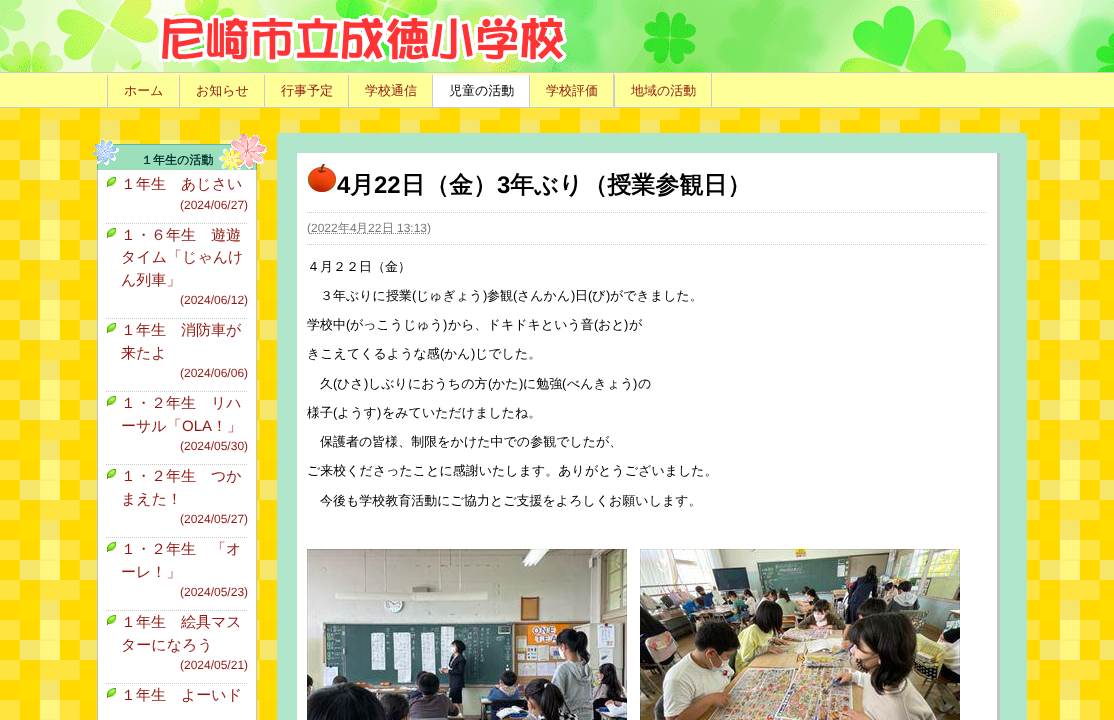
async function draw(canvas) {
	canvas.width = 1114;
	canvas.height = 720;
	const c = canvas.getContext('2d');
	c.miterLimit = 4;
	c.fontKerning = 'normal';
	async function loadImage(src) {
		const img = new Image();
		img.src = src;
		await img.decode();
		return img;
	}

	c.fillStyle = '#fff';
	c.fillRect(0, 0, 1114, 720);
	c.drawImage(await loadImage('img1.png'), 0, 108, 1114, 612);
	c.drawImage(await loadImage('img2.png'), 0, 0, 1114, 72);
	c.drawImage(await loadImage('img3.png'), 159, 14, 408, 49);
	for (const [x, y, w, h, color] of [
		[0, 73, 1114, 34, '#ff9'],
		[0, 72, 1114, 1, '#ccc'],
		[0, 107, 1114, 1, '#ccc'],
		[107, 75, 1, 32, '#ccc'],
	]) {
		c.fillStyle = color;
		c.fillRect(x, y, w, h);
	}
	c.font = '500 13px WenQuanYi Zen Hei';
	c.fillStyle = '#921712';
	c.fillText('ホーム', 124, 95);
	c.fillStyle = '#ccc';
	c.fillRect(179, 75, 1, 32);
	c.fillStyle = '#921712';
	c.fillText('お知らせ', 196, 95);
	c.fillStyle = '#ccc';
	c.fillRect(264, 75, 1, 32);
	c.fillStyle = '#921712';
	c.fillText('行事予定', 281, 95);
	c.fillStyle = '#ccc';
	c.fillRect(348, 75, 1, 32);
	c.fillStyle = '#921712';
	c.fillText('学校通信', 365, 95);
	c.fillStyle = '#fff';
	c.fillRect(433, 75, 96, 32);
	c.fillStyle = '#ccc';
	c.fillRect(432, 75, 1, 32);
	c.fillStyle = '#000';
	c.fillText('児童の活動', 449, 95);
	c.fillStyle = '#ccc';
	c.fillRect(613, 73, 1, 34);
	c.fillRect(529, 75, 1, 32);
	c.fillStyle = '#921712';
	c.fillText('学校評価', 546, 95);
	c.fillStyle = '#ccc';
	c.fillRect(711, 73, 1, 34);
	c.fillRect(614, 75, 1, 32);
	c.fillStyle = '#921712';
	c.fillText('地域の活動', 631, 95);
	c.drawImage(await loadImage('img4.png'), 93, 134, 174, 36);
	c.font = 'bold 12px WenQuanYi Zen Hei';
	c.fillStyle = '#033';
	c.fillText('１年生の活動', 141, 164);
	for (const [x, y, w, h, color] of [
		[98, 170, 158, 550, '#fff'],
		[256, 170, 1, 550, '#c6c3c6'],
		[97, 170, 1, 550, '#c6c3c6'],
	]) {
		c.fillStyle = color;
		c.fillRect(x, y, w, h);
	}
	c.drawImage(await loadImage('img5.png'), 107, 177, 9, 10);
	c.beginPath();
	c.moveTo(106, 223.5);
	c.lineTo(248, 223.5);
	c.strokeStyle = '#ccc';
	c.setLineDash([1, 1]);
	c.stroke();
	c.font = '500 15px WenQuanYi Zen Hei';
	c.fillStyle = '#921712';
	c.fillText('１年生　あじさい', 121, 189);
	c.font = '12px Liberation Sans';
	c.fillText('(2024/06/27)', 180, 209);
	c.drawImage(await loadImage('img5.png'), 107, 228, 9, 10);
	c.beginPath();
	c.moveTo(106, 318.5);
	c.lineTo(248, 318.5);
	c.stroke();
	c.font = '500 15px WenQuanYi Zen Hei';
	for (const [text, x, y] of [
		['１・６年生　遊遊', 121, 240],
		['タイム「じゃんけ', 121, 262],
		['ん列車」', 121, 285],
	]) {
		c.fillText(text, x, y);
	}
	c.font = '12px Liberation Sans';
	c.fillText('(2024/06/12)', 180, 304);
	c.drawImage(await loadImage('img5.png'), 107, 323, 9, 10);
	c.beginPath();
	c.moveTo(106, 391.5);
	c.lineTo(248, 391.5);
	c.stroke();
	c.font = '500 15px WenQuanYi Zen Hei';
	c.fillText('１年生　消防車が', 121, 335);
	c.fillText('来たよ', 121, 358);
	c.font = '12px Liberation Sans';
	c.fillText('(2024/06/06)', 180, 377);
	c.drawImage(await loadImage('img5.png'), 107, 396, 9, 10);
	c.beginPath();
	c.moveTo(106, 464.5);
	c.lineTo(248, 464.5);
	c.stroke();
	c.font = '500 15px WenQuanYi Zen Hei';
	c.fillText('１・２年生　リハ', 121, 408);
	c.fillText('ーサル「', 121, 431);
	c.font = '15px Liberation Sans';
	c.fillText('OLA', 182, 431);
	c.font = '500 15px WenQuanYi Zen Hei';
	c.fillText('！」', 212, 431);
	c.font = '12px Liberation Sans';
	c.fillText('(2024/05/30)', 180, 450);
	c.drawImage(await loadImage('img5.png'), 107, 469, 9, 10);
	c.beginPath();
	c.moveTo(106, 537.5);
	c.lineTo(248, 537.5);
	c.stroke();
	c.font = '500 15px WenQuanYi Zen Hei';
	c.fillText('１・２年生　つか', 121, 481);
	c.fillText('まえた！', 121, 504);
	c.font = '12px Liberation Sans';
	c.fillText('(2024/05/27)', 180, 523);
	c.drawImage(await loadImage('img5.png'), 107, 542, 9, 10);
	c.beginPath();
	c.moveTo(106, 610.5);
	c.lineTo(248, 610.5);
	c.stroke();
	c.font = '500 15px WenQuanYi Zen Hei';
	c.fillText('１・２年生　「オ', 121, 554);
	c.fillText('ーレ！」', 121, 577);
	c.font = '12px Liberation Sans';
	c.fillText('(2024/05/23)', 180, 596);
	c.drawImage(await loadImage('img5.png'), 107, 615, 9, 10);
	c.beginPath();
	c.moveTo(106, 683.5);
	c.lineTo(248, 683.5);
	c.stroke();
	c.font = '500 15px WenQuanYi Zen Hei';
	c.fillText('１年生　絵具マス', 121, 627);
	c.fillText('ターになろう', 121, 650);
	c.font = '12px Liberation Sans';
	c.fillText('(2024/05/21)', 180, 669);
	c.drawImage(await loadImage('img5.png'), 107, 688, 9, 10);
	c.font = '500 15px WenQuanYi Zen Hei';
	c.fillText('１年生　よーいド', 121, 700);
	for (const [x, y, w, h, color] of [
		[277, 133, 750, 587, '#afe5cb'],
		[297, 153, 700, 567, '#fff'],
		[997, 153, 3, 567, '#c6c3c6'],
	]) {
		c.fillStyle = color;
		c.fillRect(x, y, w, h);
	}
	c.drawImage(await loadImage('img6.png'), 308, 164, 28, 28);
	c.font = 'bold 24px Liberation Sans';
	c.fillStyle = '#000';
	c.fillText('4', 337, 193);
	c.font = 'bold 24px WenQuanYi Zen Hei';
	c.fillText('月', 350, 193);
	c.font = 'bold 24px Liberation Sans';
	c.fillText('22', 374, 193);
	c.font = 'bold 24px WenQuanYi Zen Hei';
	c.fillText('日（金）', 401, 193);
	c.font = 'bold 24px Liberation Sans';
	c.fillText('3', 497, 193);
	c.font = 'bold 24px WenQuanYi Zen Hei';
	c.fillText('年ぶり（授業参観日）', 510, 193);
	c.beginPath();
	c.moveTo(307, 212.5);
	c.lineTo(987, 212.5);
	c.stroke();
	c.beginPath();
	c.moveTo(307, 244.5);
	c.lineTo(987, 244.5);
	c.stroke();
	c.font = '12px Liberation Sans';
	c.fillStyle = '#777';
	c.fillText('(2022', 307, 232);
	c.beginPath();
	c.moveTo(311, 233.5);
	c.lineTo(427, 233.5);
	c.strokeStyle = '#777';
	c.stroke();
	c.font = '500 12px WenQuanYi Zen Hei';
	c.fillText('年', 338, 232);
	c.font = '12px Liberation Sans';
	c.fillText('4', 350, 232);
	c.font = '500 12px WenQuanYi Zen Hei';
	c.fillText('月', 356, 232);
	c.font = '12px Liberation Sans';
	c.fillText('22', 368, 232);
	c.font = '500 12px WenQuanYi Zen Hei';
	c.fillText('日', 382, 232);
	c.font = '12px Liberation Sans';
	c.fillText('13:13)', 397, 232);
	c.font = '500 13px WenQuanYi Zen Hei';
	c.fillStyle = '#000';
	c.fillText('４月２２日（金）', 307, 271);
	c.fillText('３年ぶりに授業', 320, 300);
	c.font = '13px Liberation Sans';
	c.fillText('(', 412, 300);
	c.font = '500 13px WenQuanYi Zen Hei';
	c.fillText('じゅぎょう', 416, 300);
	c.font = '13px Liberation Sans';
	c.fillText(')', 483, 300);
	c.font = '500 13px WenQuanYi Zen Hei';
	c.fillText('参観', 487, 300);
	c.font = '13px Liberation Sans';
	c.fillText('(', 513, 300);
	c.font = '500 13px WenQuanYi Zen Hei';
	c.fillText('さんかん', 517, 300);
	c.font = '13px Liberation Sans';
	c.fillText(')', 571, 300);
	c.font = '500 13px WenQuanYi Zen Hei';
	c.fillText('日', 575, 300);
	c.font = '13px Liberation Sans';
	c.fillText('(', 588, 300);
	c.font = '500 13px WenQuanYi Zen Hei';
	c.fillText('び', 592, 300);
	c.font = '13px Liberation Sans';
	c.fillText(')', 606, 300);
	c.font = '500 13px WenQuanYi Zen Hei';
	c.fillText('ができました。', 610, 300);
	c.fillText('学校中', 307, 329);
	c.font = '13px Liberation Sans';
	c.fillText('(', 346, 329);
	c.font = '500 13px WenQuanYi Zen Hei';
	c.fillText('がっこうじゅう', 350, 329);
	c.font = '13px Liberation Sans';
	c.fillText(')', 443, 329);
	c.font = '500 13px WenQuanYi Zen Hei';
	c.fillText('から、ドキドキという音', 448, 329);
	c.font = '13px Liberation Sans';
	c.fillText('(', 594, 329);
	c.font = '500 13px WenQuanYi Zen Hei';
	c.fillText('おと', 598, 329);
	c.font = '13px Liberation Sans';
	c.fillText(')', 624, 329);
	c.font = '500 13px WenQuanYi Zen Hei';
	c.fillText('が', 629, 329);
	c.fillText('きこえてくるような感', 307, 358);
	c.font = '13px Liberation Sans';
	c.fillText('(', 440, 358);
	c.font = '500 13px WenQuanYi Zen Hei';
	c.fillText('かん', 444, 358);
	c.font = '13px Liberation Sans';
	c.fillText(')', 471, 358);
	c.font = '500 13px WenQuanYi Zen Hei';
	c.fillText('じでした。', 475, 358);
	c.fillText('久', 320, 388);
	c.font = '13px Liberation Sans';
	c.fillText('(', 333, 388);
	c.font = '500 13px WenQuanYi Zen Hei';
	c.fillText('ひさ', 337, 388);
	c.font = '13px Liberation Sans';
	c.fillText(')', 364, 388);
	c.font = '500 13px WenQuanYi Zen Hei';
	c.fillText('しぶりにおうちの方', 368, 388);
	c.font = '13px Liberation Sans';
	c.fillText('(', 488, 388);
	c.font = '500 13px WenQuanYi Zen Hei';
	c.fillText('かた', 492, 388);
	c.font = '13px Liberation Sans';
	c.fillText(')', 519, 388);
	c.font = '500 13px WenQuanYi Zen Hei';
	c.fillText('に勉強', 523, 388);
	c.font = '13px Liberation Sans';
	c.fillText('(', 562, 388);
	c.font = '500 13px WenQuanYi Zen Hei';
	c.fillText('べんきょう', 567, 388);
	c.font = '13px Liberation Sans';
	c.fillText(')', 633, 388);
	c.font = '500 13px WenQuanYi Zen Hei';
	c.fillText('の', 638, 388);
	c.fillText('様子', 307, 417);
	c.font = '13px Liberation Sans';
	c.fillText('(', 333, 417);
	c.font = '500 13px WenQuanYi Zen Hei';
	c.fillText('ようす', 337, 417);
	c.font = '13px Liberation Sans';
	c.fillText(')', 377, 417);
	c.font = '500 13px WenQuanYi Zen Hei';
	for (const [text, x, y] of [
		['をみていただけましたね。', 382, 417],
		['保護者の皆様、制限をかけた中での参観でしたが、', 320, 446],
		['ご来校くださったことに感謝いたします。ありがとうございました。', 307, 475],
		['今後も学校教育活動にご協力とご支援をよろしくお願いします。', 320, 505],
	]) {
		c.fillText(text, x, y);
	}
	c.drawImage(await loadImage('img7.png'), 307, 549, 320, 171);
	c.drawImage(await loadImage('img8.png'), 640, 549, 320, 171);
}

draw(document.querySelector('canvas'));
